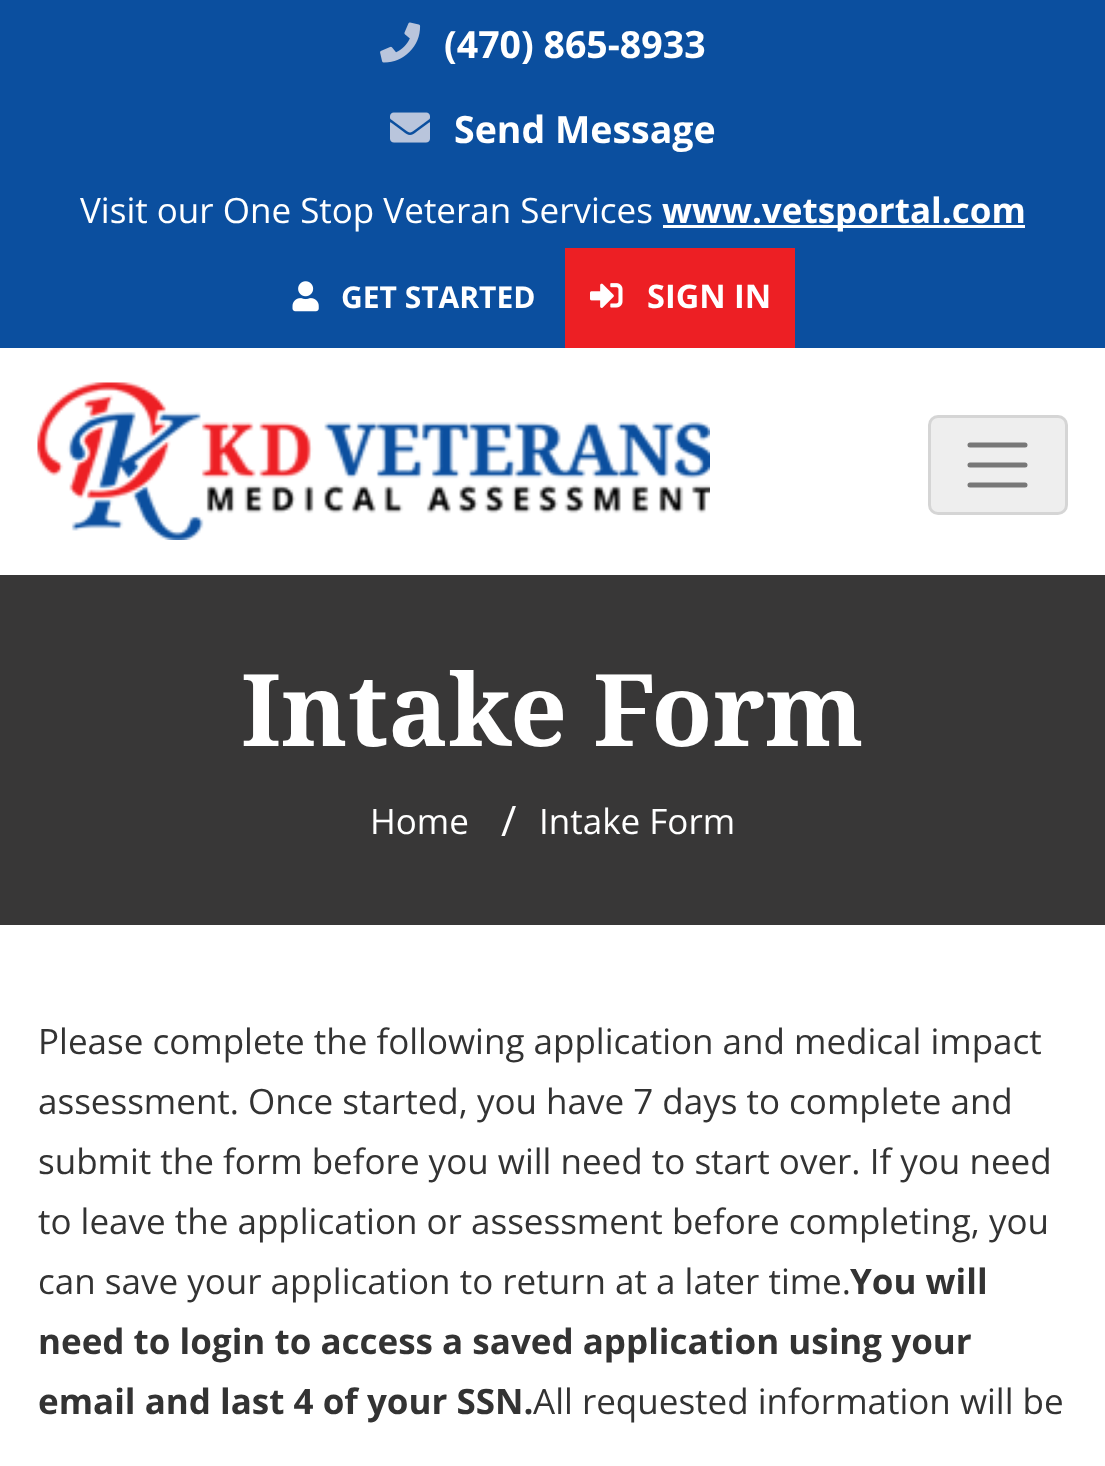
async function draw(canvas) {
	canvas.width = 1105;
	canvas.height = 1466;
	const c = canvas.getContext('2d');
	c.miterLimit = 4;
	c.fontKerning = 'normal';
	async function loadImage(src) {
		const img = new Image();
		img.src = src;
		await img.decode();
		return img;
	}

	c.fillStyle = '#fff';
	c.fillRect(0, 0, 1105, 1466);
	c.fillStyle = '#0b4f9f';
	c.fillRect(0, 0, 1105, 348);
	c.drawImage(await loadImage('img1.png'), 380, 22, 41, 41);
	c.font = 'bold 37.5px Open Sans';
	c.fillStyle = '#fff';
	c.fillText('(470) 865-8933', 444, 58);
	c.drawImage(await loadImage('img2.png'), 390, 112, 40, 31);
	c.fillText('Send Message', 454, 143);
	c.font = '35px Open Sans';
	c.fillText('Visit our One Stop Veteran Services', 80, 223);
	c.fillRect(663, 225, 362, 3);
	c.font = 'bold 35px Open Sans';
	c.fillText('www.vetsportal.com', 662, 223);
	c.drawImage(await loadImage('img3.png'), 292, 281, 27, 31);
	c.font = 'bold 30px Open Sans';
	c.fillText('GET STARTED', 341, 308);
	c.fillStyle = '#ed1f24';
	c.fillRect(565, 248, 230, 100);
	c.drawImage(await loadImage('img4.png'), 590, 283, 33, 25);
	c.font = 'bold 32.5px Open Sans';
	c.fillStyle = '#fff';
	c.fillText('SIGN IN', 647, 308);
	c.drawImage(await loadImage('img5.png'), 37, 382, 673, 158);
	c.fillStyle = '#eee';
	c.beginPath();
	c.roundRect(928, 415, 140, 100, 10);
	c.fill();
	c.beginPath();
	c.roundRect(929.5, 416.5, 137, 97, 8.5);
	c.strokeStyle = '#0000001a';
	c.lineWidth = 3;
	c.stroke();
	c.beginPath();
	c.moveTo(970, 445);
	c.lineTo(1025, 445);
	c.moveTo(970, 465);
	c.lineTo(1025, 465);
	c.moveTo(970, 485);
	c.lineTo(1025, 485);
	c.strokeStyle = '#777';
	c.lineWidth = 5;
	c.lineCap = 'round';
	c.stroke();
	c.fillStyle = '#383737';
	c.fillRect(0, 575, 1105, 350);
	c.font = 'bold 100px Noto Serif';
	c.fillStyle = '#fff';
	c.fillText('Intake Form', 241, 746);
	c.font = '35px Open Sans';
	c.fillText('Home', 370, 834);
	c.font = '42px Open Sans';
	c.fillText('/', 501, 836);
	c.font = '35px Open Sans';
	c.fillText('Intake Form', 539, 834);
	c.fillStyle = '#333';
	for (const [text, x, y] of [
		['Please complete the following application and medical impact', 38, 1054],
		['assessment. Once started, you have 7 days to complete and', 38, 1114],
		['submit the form before you will need to start over. If you need', 38, 1174],
		['to leave the application or assessment before completing, you', 38, 1234],
		['can save your application to return at a later time.', 38, 1294],
	]) {
		c.fillText(text, x, y);
	}
	c.font = 'bold 35px Open Sans';
	for (const [text, x, y] of [
		['You will', 850, 1294],
		['need to login to access a saved application using your', 38, 1354],
		['email and last 4 of your SSN.', 38, 1414],
	]) {
		c.fillText(text, x, y);
	}
	c.font = '35px Open Sans';
	c.fillText('All requested information will be', 533, 1414);
}

draw(document.querySelector('canvas'));
